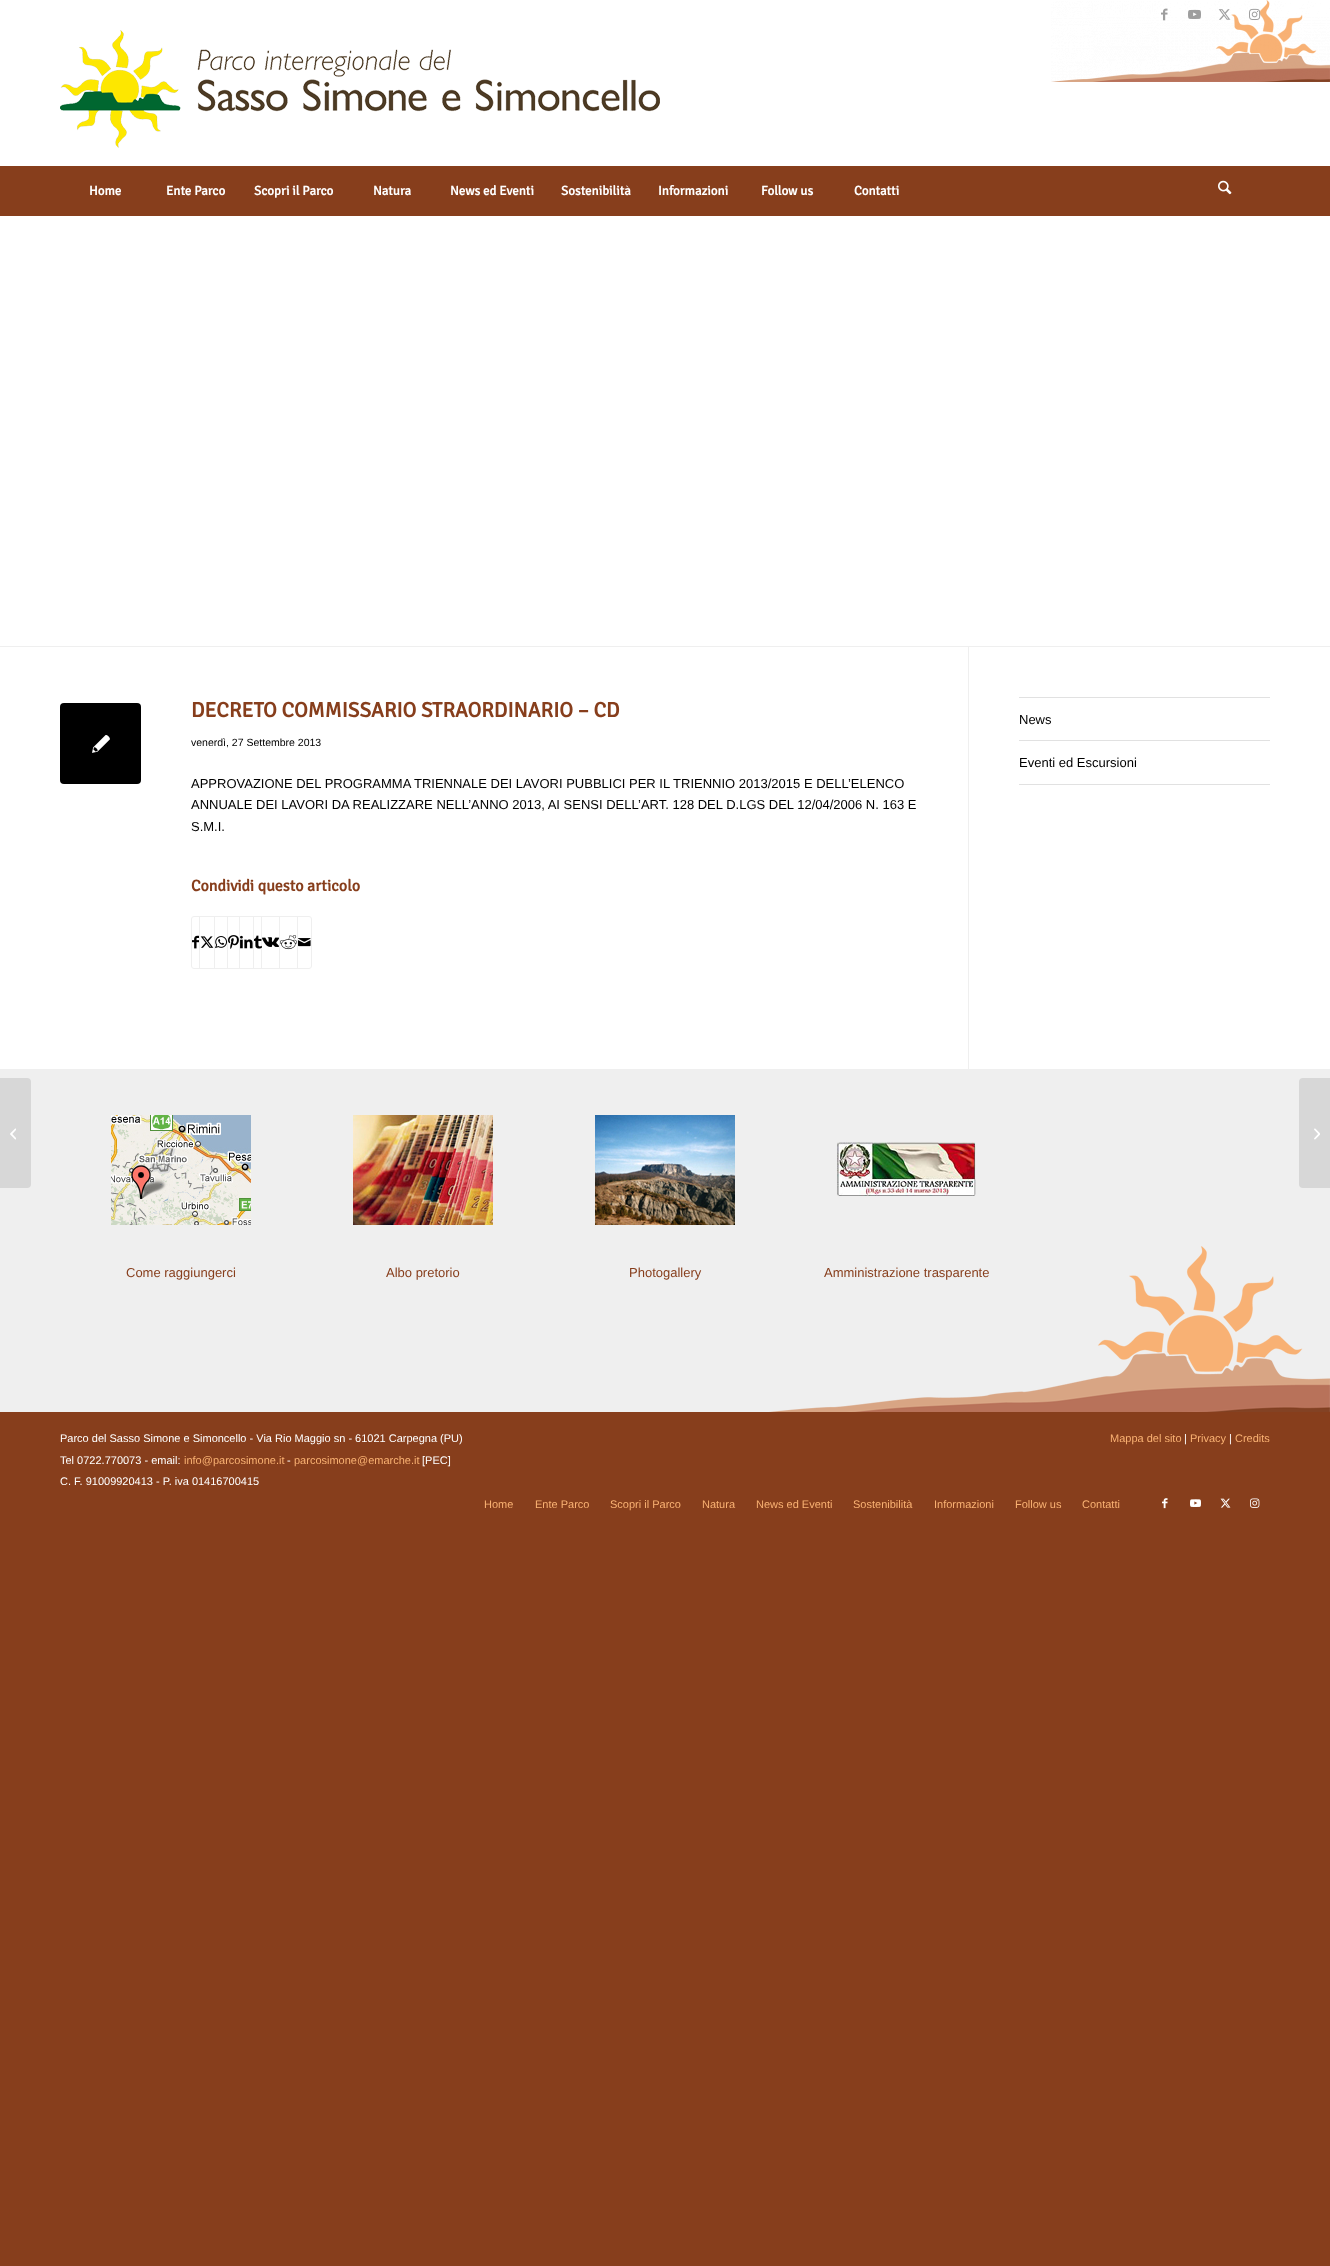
async function draw(canvas) {
	canvas.width = 1330;
	canvas.height = 2266;
	const c = canvas.getContext('2d');
	c.miterLimit = 4;
	c.fontKerning = 'normal';
	async function loadImage(src) {
		const img = new Image();
		img.src = src;
		await img.decode();
		return img;
	}

	c.fillStyle = '#873e1c';
	c.fillRect(0, 0, 1330, 2266);
	c.fillStyle = '#fff';
	c.fillRect(0, 0, 1330, 1069);
	c.drawImage(await loadImage('img1.png'), 1051, 0, 279, 82);
	c.drawImage(await loadImage('img2.png'), 1161, 8, 7, 13);
	c.drawImage(await loadImage('img3.png'), 1188, 9, 13, 10);
	c.drawImage(await loadImage('img4.png'), 1218, 9, 13, 11);
	c.drawImage(await loadImage('img5.png'), 1249, 8, 12, 12);
	c.drawImage(await loadImage('img6.png'), 60, 30, 600, 118);
	c.fillStyle = '#873e1c';
	c.fillRect(0, 166, 1330, 50);
	c.font = 'bold 13px Signika Negative';
	c.fillStyle = '#fff';
	for (const [text, x, y] of [
		['Home', 89, 195],
		['Ente Parco', 166, 195],
		['Scopri il Parco', 254, 195],
		['Natura', 373, 195],
		['News ed Eventi', 450, 195],
		['Sostenibilità', 561, 195],
		['Informazioni', 658, 195],
		['Follow us', 761, 195],
		['Contatti', 854, 195],
	]) {
		c.fillText(text, x, y);
	}
	c.drawImage(await loadImage('img7.png'), 1218, 180, 14, 15);
	c.fillStyle = '#efefef';
	c.fillRect(0, 1069, 1330, 343);
	c.fillStyle = '#d7d7d7';
	c.beginPath();
	c.roundRect(0, 1078, 31, 110, [0, 4, 4, 0]);
	c.fill();
	c.drawImage(await loadImage('img8.png'), 10, 1128, 6, 12);
	c.fillStyle = '#efefef';
	c.fillRect(0, 646, 1330, 1);
	c.fillRect(968, 647, 1, 422);
	c.fillStyle = '#000';
	c.beginPath();
	c.roundRect(60, 703, 81, 81, 4);
	c.fill();
	c.drawImage(await loadImage('img9.png'), 92, 735, 18, 18);
	c.font = 'bold 21px Signika Negative';
	c.fillStyle = '#873e1c';
	c.fillText('DECRETO COMMISSARIO STRAORDINARIO – CD', 191, 717);
	c.font = '10.5px Liberation Sans';
	c.fillStyle = '#000';
	c.fillText('venerdì, 27 Settembre 2013', 191, 746);
	c.font = '13px Liberation Sans';
	for (const [text, x, y] of [
		['APPROVAZIONE DEL PROGRAMMA TRIENNALE DEI LAVORI PUBBLICI PER IL TRIENNIO 2013/2015 E DELL’ELENCO', 191, 788],
		['ANNUALE DEI LAVORI DA REALIZZARE NELL’ANNO 2013, AI SENSI DELL’ART. 128 DEL D.LGS DEL 12/04/2006 N. 163 E', 191, 809],
		['S.M.I.', 191, 831],
	]) {
		c.fillText(text, x, y);
	}
	c.font = 'bold 16px Signika Negative';
	c.fillStyle = '#873e1c';
	c.fillText('Condividi questo articolo', 191, 891);
	c.beginPath();
	c.roundRect(191.5, 916.5, 120, 52, 2.5);
	c.strokeStyle = '#efefef';
	c.stroke();
	c.drawImage(await loadImage('img10.png'), 192, 935, 7, 14);
	c.fillStyle = '#efefef';
	c.fillRect(199, 917, 1, 51);
	c.drawImage(await loadImage('img11.png'), 200, 936, 14, 12);
	c.fillRect(214, 917, 1, 51);
	c.drawImage(await loadImage('img12.png'), 215, 936, 12, 13);
	c.fillRect(227, 917, 1, 51);
	c.drawImage(await loadImage('img13.png'), 228, 935, 11, 14);
	c.fillRect(239, 917, 1, 51);
	c.drawImage(await loadImage('img14.png'), 240, 935, 13, 14);
	c.fillRect(253, 917, 1, 51);
	c.fillRect(261, 917, 1, 51);
	c.drawImage(await loadImage('img15.png'), 254, 935, 8, 14);
	c.drawImage(await loadImage('img16.png'), 262, 937, 17, 10);
	c.fillRect(279, 917, 1, 51);
	c.drawImage(await loadImage('img17.png'), 280, 935, 17, 15);
	c.fillRect(297, 917, 1, 51);
	c.drawImage(await loadImage('img18.png'), 298, 938, 13, 9);
	c.fillStyle = '#e1e1e1';
	c.fillRect(1019, 697, 251, 1);
	c.fillRect(1019, 740, 251, 1);
	c.font = '13px Liberation Sans';
	c.fillStyle = '#000';
	c.fillText('News', 1019, 724);
	c.fillStyle = '#e1e1e1';
	c.fillRect(1019, 784, 251, 1);
	c.fillStyle = '#000';
	c.fillText('Eventi ed Escursioni', 1019, 767);
	c.drawImage(await loadImage('img19.png'), 769, 1246, 561, 166);
	c.drawImage(await loadImage('img20.png'), 111, 1115, 140, 110);
	c.fillStyle = '#873e1c';
	c.fillText('Come raggiungerci', 126, 1277);
	c.drawImage(await loadImage('img21.png'), 353, 1115, 140, 110);
	c.fillText('Albo pretorio', 386, 1277);
	c.drawImage(await loadImage('img22.png'), 595, 1115, 140, 110);
	c.fillText('Photogallery', 629, 1277);
	c.drawImage(await loadImage('img23.png'), 837, 1142, 139, 54);
	c.fillText('Amministrazione trasparente', 824, 1277);
	c.font = '11px Liberation Sans';
	c.fillStyle = '#fff';
	c.fillText('Parco del Sasso Simone e Simoncello - Via Rio Maggio sn - 61021 Carpegna (PU)', 60, 1442);
	c.fillText('Tel 0722.770073 - email:', 60, 1464);
	c.fillStyle = '#fab273';
	c.fillText('info@parcosimone.it', 184, 1464);
	c.fillStyle = '#fff';
	c.fillText('-', 287, 1464);
	c.fillStyle = '#fab273';
	c.fillText('parcosimone@emarche.it', 294, 1464);
	c.fillStyle = '#fff';
	c.fillText('[PEC]', 422, 1464);
	c.fillText('C. F. 91009920413 - P. iva 01416700415', 60, 1485);
	c.fillStyle = '#fab273';
	c.fillText('Mappa del sito', 1110, 1442);
	c.fillStyle = '#fff';
	c.fillText('|', 1184, 1442);
	c.fillStyle = '#fab273';
	c.fillText('Privacy', 1190, 1442);
	c.fillStyle = '#fff';
	c.fillText('|', 1229, 1442);
	c.fillStyle = '#fab273';
	for (const [text, x, y] of [
		['Credits', 1235, 1442],
		['Home', 484, 1508],
		['Ente Parco', 535, 1508],
		['Scopri il Parco', 610, 1508],
		['Natura', 702, 1508],
		['News ed Eventi', 756, 1508],
		['Sostenibilità', 853, 1508],
		['Informazioni', 934, 1508],
		['Follow us', 1015, 1508],
		['Contatti', 1082, 1508],
	]) {
		c.fillText(text, x, y);
	}
	c.drawImage(await loadImage('img24.png'), 1162, 1498, 6, 11);
	c.drawImage(await loadImage('img25.png'), 1190, 1499, 11, 8);
	c.drawImage(await loadImage('img26.png'), 1220, 1498, 11, 10);
	c.drawImage(await loadImage('img27.png'), 1250, 1498, 10, 10);
	c.fillStyle = '#d7d7d7';
	c.beginPath();
	c.roundRect(1299, 1078, 31, 110, [4, 0, 0, 4]);
	c.fill();
	c.drawImage(await loadImage('img28.png'), 1314, 1128, 6, 12);
}

draw(document.querySelector('canvas'));
